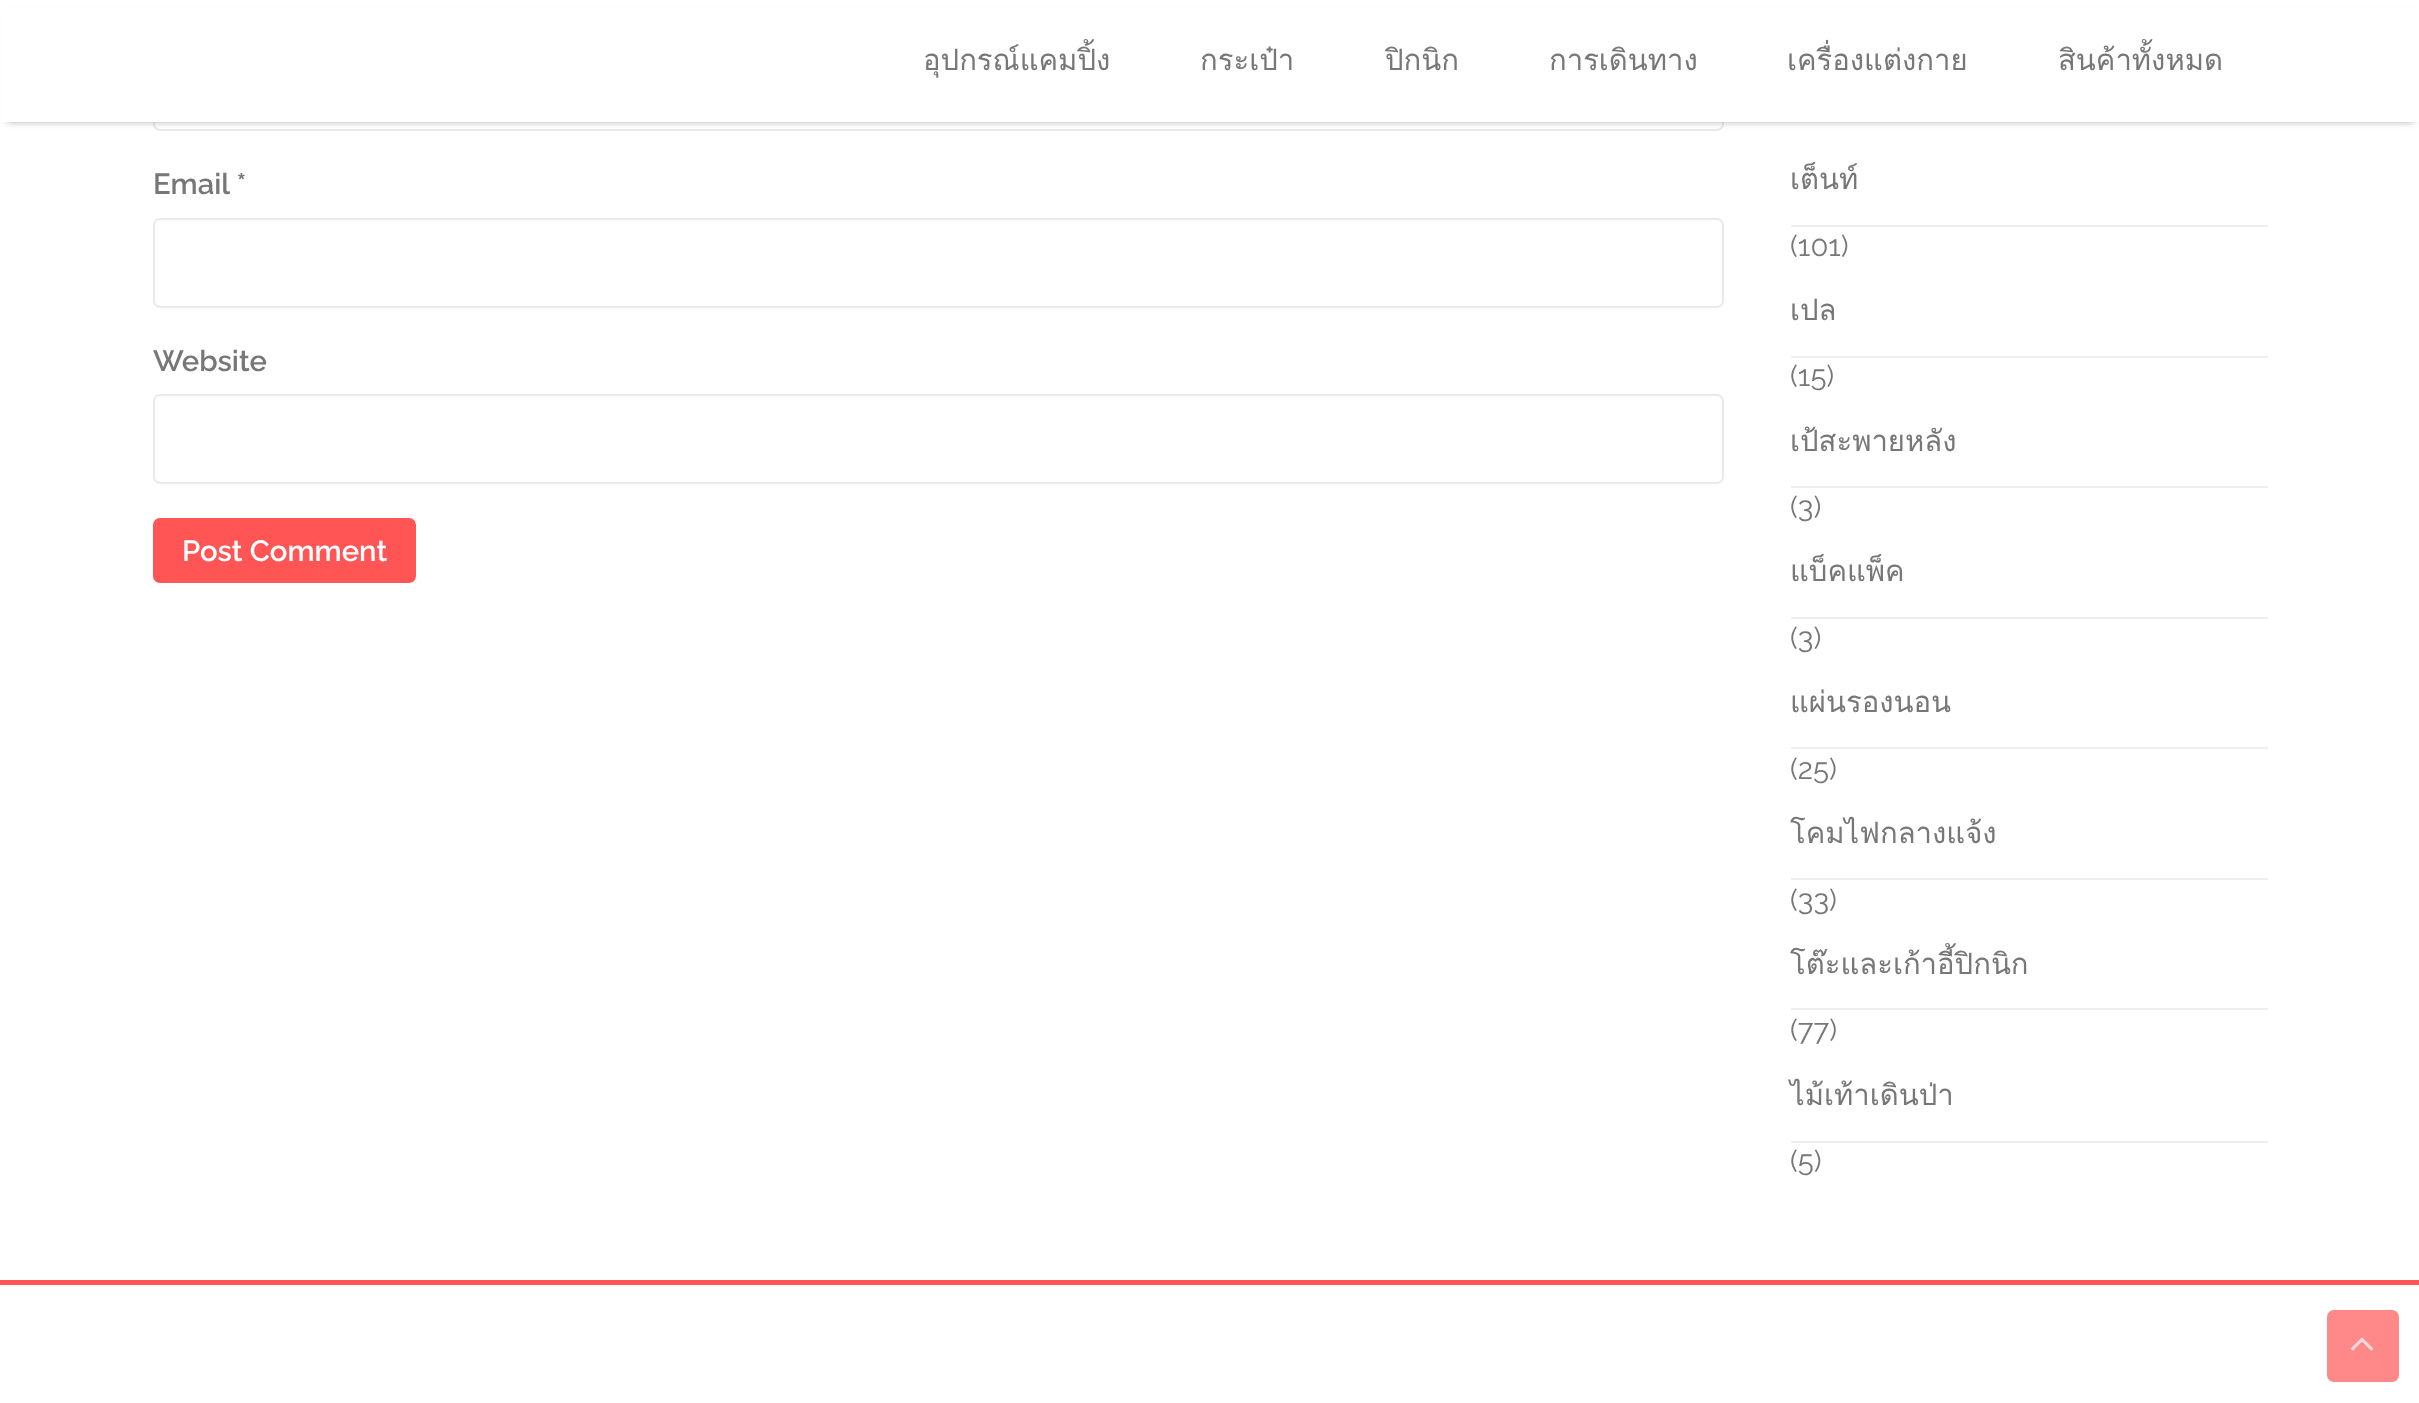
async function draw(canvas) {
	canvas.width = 2419;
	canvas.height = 1403;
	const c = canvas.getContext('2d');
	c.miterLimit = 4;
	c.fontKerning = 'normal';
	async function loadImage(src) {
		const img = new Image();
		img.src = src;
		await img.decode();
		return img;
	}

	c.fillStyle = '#fff';
	c.fillRect(0, 0, 2419, 1403);
	c.beginPath();
	c.roundRect(154, 42, 1569, 88, 6);
	c.strokeStyle = '#eaeaea';
	c.lineWidth = 2;
	c.stroke();
	c.fillStyle = '#0000004d';
	c.filter = 'blur(3.5px)';
	c.beginPath();
	c.rect(7, 14, 2407, 108);
	c.fill();
	c.filter = 'none';
	c.fillStyle = '#fff';
	c.fillRect(1, 8, 2418, 114);
	c.font = '29.25px Loma';
	c.fillStyle = '#777';
	for (const [text, x, y] of [
		['อุปกรณ์แคมปิ้ง', 923, 70],
		['กระเป๋า', 1200, 70],
		['ปิกนิก', 1385, 70],
		['การเดินทาง', 1549, 70],
		['เครื่องแต่งกาย', 1787, 70],
		['สินค้าทั้งหมด', 2058, 70],
	]) {
		c.fillText(text, x, y);
	}
	c.font = '600 29.25px Raleway';
	c.fillText('Email *', 153, 194);
	c.beginPath();
	c.roundRect(154, 219, 1569, 88, 6);
	c.stroke();
	c.fillText('Website', 153, 371);
	c.beginPath();
	c.roundRect(154, 395, 1569, 88, 6);
	c.stroke();
	c.fillStyle = '#f55';
	c.beginPath();
	c.roundRect(153, 518, 263, 65, 7);
	c.fill();
	c.fillStyle = '#fff';
	c.fillText('Post Comment', 182, 561);
	c.fillStyle = '#eee';
	c.fillRect(1791, 225, 477, 2);
	c.font = '29.25px Loma';
	c.fillStyle = '#777';
	c.fillText('เต็นท์', 1790, 189);
	c.font = '29.25px Raleway';
	c.fillText('(101)', 1790, 256);
	c.fillStyle = '#eee';
	c.fillRect(1791, 356, 477, 2);
	c.font = '29.25px Loma';
	c.fillStyle = '#777';
	c.fillText('เปล', 1790, 320);
	c.font = '29.25px Raleway';
	c.fillText('(15)', 1790, 386);
	c.fillStyle = '#eee';
	c.fillRect(1791, 486, 477, 2);
	c.font = '29.25px Loma';
	c.fillStyle = '#777';
	c.fillText('เป้สะพายหลัง', 1790, 451);
	c.font = '29.25px Raleway';
	c.fillText('(3)', 1790, 517);
	c.fillStyle = '#eee';
	c.fillRect(1791, 617, 477, 2);
	c.font = '29.25px Loma';
	c.fillStyle = '#777';
	c.fillText('แบ็คแพ็ค', 1790, 581);
	c.font = '29.25px Raleway';
	c.fillText('(3)', 1790, 648);
	c.fillStyle = '#eee';
	c.fillRect(1791, 747, 477, 2);
	c.font = '29.25px Loma';
	c.fillStyle = '#777';
	c.fillText('แผ่นรองนอน', 1790, 712);
	c.font = '29.25px Raleway';
	c.fillText('(25)', 1790, 779);
	c.fillStyle = '#eee';
	c.fillRect(1791, 878, 477, 2);
	c.font = '29.25px Loma';
	c.fillStyle = '#777';
	c.fillText('โคมไฟกลางแจ้ง', 1790, 843);
	c.font = '29.25px Raleway';
	c.fillText('(33)', 1790, 910);
	c.fillStyle = '#eee';
	c.fillRect(1791, 1008, 477, 2);
	c.font = '29.25px Loma';
	c.fillStyle = '#777';
	c.fillText('โต๊ะและเก้าอี้ปิกนิก', 1790, 974);
	c.font = '29.25px Raleway';
	c.fillText('(77)', 1790, 1040);
	c.fillStyle = '#eee';
	c.fillRect(1791, 1141, 477, 2);
	c.font = '29.25px Loma';
	c.fillStyle = '#777';
	c.fillText('ไม้เท้าเดินป่า', 1790, 1105);
	c.font = '29.25px Raleway';
	c.fillText('(5)', 1790, 1171);
	c.fillStyle = '#f55';
	c.fillRect(0, 1280, 2419, 5);
	c.fillStyle = '#f88';
	c.beginPath();
	c.roundRect(2327, 1310, 72, 72, 7);
	c.fill();
	c.drawImage(await loadImage('img1.png'), 2350, 1337, 24, 14);
}

draw(document.querySelector('canvas'));
